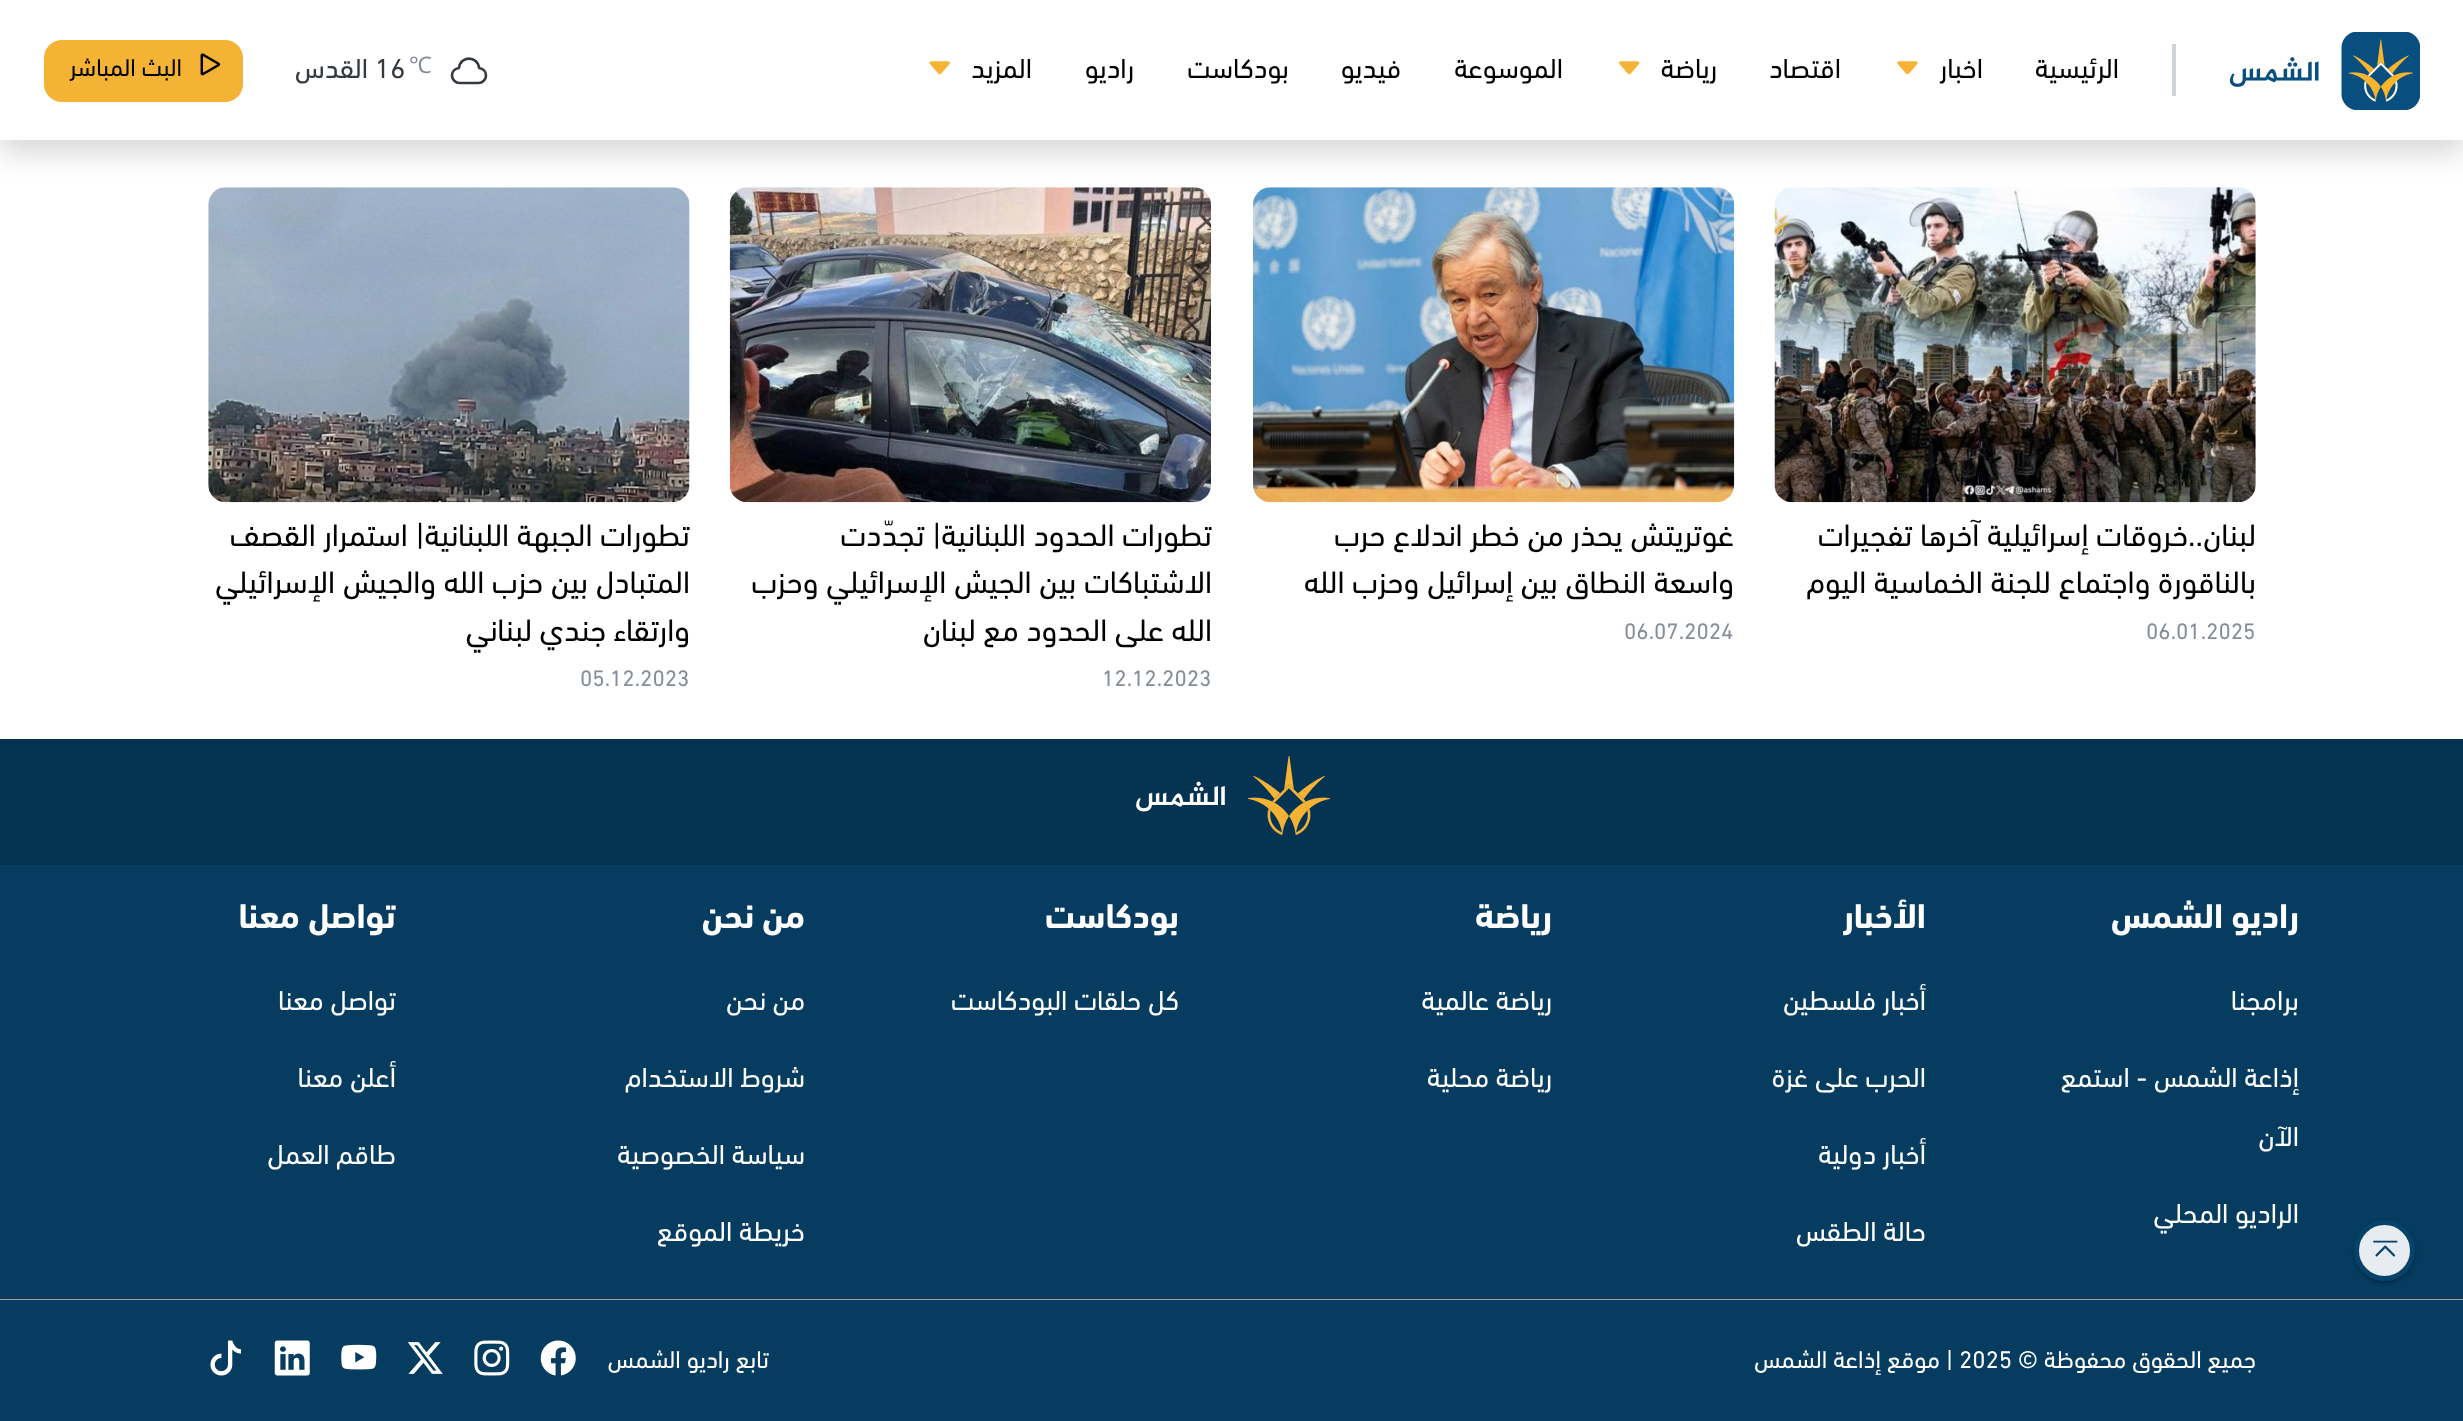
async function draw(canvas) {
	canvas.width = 2463;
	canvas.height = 1421;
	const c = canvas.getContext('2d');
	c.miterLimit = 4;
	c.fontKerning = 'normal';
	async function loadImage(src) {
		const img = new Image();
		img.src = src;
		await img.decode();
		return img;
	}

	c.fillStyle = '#fff';
	c.fillRect(0, 0, 2463, 1421);
	c.drawImage(await loadImage('img6.png'), 1774, 187, 482, 316);
	c.drawImage(await loadImage('img7.png'), 1253, 187, 482, 316);
	c.drawImage(await loadImage('img8.png'), 729, 187, 482, 316);
	c.drawImage(await loadImage('img9.png'), 208, 187, 482, 316);
	c.fillStyle = '#00000026';
	c.filter = 'blur(14px)';
	c.beginPath();
	c.rect(0, 14, 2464, 140);
	c.fill();
	c.filter = 'none';
	c.fillStyle = '#fff';
	c.fillRect(0, 0, 2463, 140);
	c.fillStyle = '#ced4da';
	c.fillRect(2172, 44, 4, 52);
	c.drawImage(await loadImage('img1.png'), 2229, 32, 191, 78);
	c.direction = 'rtl';
	c.font = '28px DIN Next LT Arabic';
	c.fillStyle = '#000';
	c.fillText('الرئيسية', 2119, 78);
	c.fillText('اخبار', 1983, 78);
	c.drawImage(await loadImage('img2.png'), 1897, 61, 21, 14);
	c.fillText('اقتصاد', 1841, 78);
	c.fillText('رياضة', 1717, 78);
	c.drawImage(await loadImage('img3.png'), 1619, 61, 21, 14);
	for (const [text, x, y] of [
		['الموسوعة', 1563, 78],
		['فيديو', 1401, 78],
		['بودكاست', 1289, 78],
		['راديو', 1134, 78],
		['المزيد', 1032, 78],
	]) {
		c.fillText(text, x, y);
	}
	c.drawImage(await loadImage('img4.png'), 929, 61, 21, 14);
	c.beginPath();
	c.moveTo(452, 75.5);
	c.bezierCurveTo(452, 79.5, 455.5, 83, 459.5, 83);
	c.lineTo(478.5, 83);
	c.bezierCurveTo(482.5, 83, 486, 79.5, 486, 75.5);
	c.bezierCurveTo(486, 71.5, 483, 68.5, 479, 68);
	c.bezierCurveTo(478, 55.5, 460, 55.5, 459, 68);
	c.bezierCurveTo(455, 68.5, 452, 71.5, 452, 75.5);
	c.closePath();
	c.strokeStyle = '#343a40';
	c.lineWidth = 2.6;
	c.lineCap = 'round';
	c.lineJoin = 'round';
	c.stroke();
	c.direction = 'ltr';
	c.font = '22.75px Noto Sans';
	c.fillStyle = '#868e96';
	c.fillText('℃', 409, 73);
	c.font = '28px DIN Next LT Arabic';
	c.fillStyle = '#343a40';
	c.fillText('16', 375, 78);
	c.direction = 'rtl';
	c.fillText('القدس', 368, 78);
	c.fillStyle = '#f5b335';
	c.beginPath();
	c.roundRect(44, 40, 199, 62, 18);
	c.fill();
	c.drawImage(await loadImage('img5.png'), 200, 53, 21, 23);
	c.font = '24.5px DIN Next LT Arabic';
	c.fillStyle = '#000';
	c.fillText('البث المباشر', 182, 76);
	c.font = '31.5px DIN Next LT Arabic';
	c.fillText('لبنان..خروقات إسرائيلية آخرها تفجيرات', 2256, 546);
	c.fillText('بالناقورة واجتماع للجنة الخماسية اليوم', 2256, 593);
	c.direction = 'ltr';
	c.font = '22.75px DIN Next LT Arabic';
	c.fillStyle = '#868e96';
	c.fillText('06.01.2025', 2146, 639);
	c.direction = 'rtl';
	c.font = '31.5px DIN Next LT Arabic';
	c.fillStyle = '#000';
	c.fillText('غوتريتش يحذر من خطر اندلاع حرب', 1734, 546);
	c.fillText('واسعة النطاق بين إسرائيل وحزب الله', 1734, 593);
	c.direction = 'ltr';
	c.font = '22.75px DIN Next LT Arabic';
	c.fillStyle = '#868e96';
	c.fillText('06.07.2024', 1624, 639);
	c.direction = 'rtl';
	c.font = '31.5px DIN Next LT Arabic';
	c.fillStyle = '#000';
	for (const [text, x, y] of [
		['تطورات الحدود اللبنانية| تجدّدت', 1212, 546],
		['الاشتباكات بين الجيش الإسرائيلي وحزب', 1212, 593],
		['الله على الحدود مع لبنان', 1212, 641],
	]) {
		c.fillText(text, x, y);
	}
	c.direction = 'ltr';
	c.font = '22.75px DIN Next LT Arabic';
	c.fillStyle = '#868e96';
	c.fillText('12.12.2023', 1102, 686);
	c.direction = 'rtl';
	c.font = '31.5px DIN Next LT Arabic';
	c.fillStyle = '#000';
	for (const [text, x, y] of [
		['تطورات الجبهة اللبنانية| استمرار القصف', 690, 546],
		['المتبادل بين حزب الله والجيش الإسرائيلي', 690, 593],
		['وارتقاء جندي لبناني', 690, 641],
	]) {
		c.fillText(text, x, y);
	}
	c.direction = 'ltr';
	c.font = '22.75px DIN Next LT Arabic';
	c.fillStyle = '#868e96';
	c.fillText('05.12.2023', 580, 686);
	c.fillStyle = '#063c60';
	c.fillRect(0, 865, 2463, 434);
	c.save();
	c.beginPath();
	c.moveTo(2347, 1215);
	c.lineTo(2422, 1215);
	c.lineTo(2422, 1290);
	c.lineTo(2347, 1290);
	c.closePath();
	c.moveTo(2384.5, 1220);
	c.bezierCurveTo(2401.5, 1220, 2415, 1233.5, 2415, 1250.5);
	c.bezierCurveTo(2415, 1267.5, 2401.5, 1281, 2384.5, 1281);
	c.bezierCurveTo(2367.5, 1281, 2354, 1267.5, 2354, 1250.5);
	c.bezierCurveTo(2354, 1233.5, 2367.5, 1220, 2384.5, 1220);
	c.closePath();
	c.clip('evenodd');
	c.fillStyle = '#0000004d';
	c.filter = 'blur(2px)';
	c.beginPath();
	c.roundRect(2354, 1222, 61, 61, 30.5);
	c.fill();
	c.filter = 'none';
	c.restore();
	c.fillStyle = '#ffffffe6';
	c.beginPath();
	c.arc(2384.5, 1250.5, 28, 0, 2 * Math.PI);
	c.fill();
	c.strokeStyle = '#07426a';
	c.lineWidth = 5;
	c.stroke();
	c.drawImage(await loadImage('img10.png'), 2373, 1240, 25, 17);
	c.fillStyle = '#053352';
	c.fillRect(0, 739, 2463, 126);
	c.drawImage(await loadImage('img11.png'), 1136, 756, 194, 79);
	c.fillStyle = '#9d9d9d';
	c.fillRect(0, 1299, 2463, 1);
	c.direction = 'rtl';
	c.font = 'bold 35px DIN Next LT Arabic';
	c.fillStyle = '#fff';
	c.fillText('راديو الشمس', 2299, 928);
	c.font = '28px DIN Next LT Arabic';
	for (const [text, x, y] of [
		['برامجنا', 2299, 1010],
		['إذاعة الشمس - استمع', 2299, 1087],
		['الآن', 2299, 1146],
		['الراديو المحلي', 2299, 1223],
	]) {
		c.fillText(text, x, y);
	}
	c.font = 'bold 35px DIN Next LT Arabic';
	c.fillText('الأخبار', 1926, 928);
	c.font = '28px DIN Next LT Arabic';
	for (const [text, x, y] of [
		['أخبار فلسطين', 1926, 1010],
		['الحرب على غزة', 1926, 1087],
		['أخبار دولية', 1926, 1164],
		['حالة الطقس', 1926, 1241],
	]) {
		c.fillText(text, x, y);
	}
	c.font = 'bold 35px DIN Next LT Arabic';
	c.fillText('رياضة', 1552, 928);
	c.font = '28px DIN Next LT Arabic';
	c.fillText('رياضة عالمية', 1552, 1010);
	c.fillText('رياضة محلية', 1552, 1087);
	c.font = 'bold 35px DIN Next LT Arabic';
	c.fillText('بودكاست', 1179, 928);
	c.font = '28px DIN Next LT Arabic';
	c.fillText('كل حلقات البودكاست', 1179, 1010);
	c.font = 'bold 35px DIN Next LT Arabic';
	c.fillText('من نحن', 805, 928);
	c.font = '28px DIN Next LT Arabic';
	for (const [text, x, y] of [
		['من نحن', 805, 1010],
		['شروط الاستخدام', 805, 1087],
		['سياسة الخصوصية', 805, 1164],
		['خريطة الموقع', 805, 1241],
	]) {
		c.fillText(text, x, y);
	}
	c.font = 'bold 35px DIN Next LT Arabic';
	c.fillText('تواصل معنا', 396, 928);
	c.font = '28px DIN Next LT Arabic';
	for (const [text, x, y] of [
		['تواصل معنا', 396, 1010],
		['أعلن معنا', 396, 1087],
		['طاقم العمل', 396, 1164],
	]) {
		c.fillText(text, x, y);
	}
	c.fillStyle = '#063c60';
	c.fillRect(0, 1300, 2463, 121);
	c.font = '24.5px DIN Next LT Arabic';
	c.fillStyle = '#fff';
	c.fillText('جميع الحقوق محفوظة ©', 2256, 1368);
	c.direction = 'ltr';
	c.fillText('2025', 1959, 1368);
	c.direction = 'rtl';
	c.fillText('| موقع إذاعة الشمس', 1953, 1368);
	c.fillText('تابع راديو الشمس', 769, 1368);
	c.drawImage(await loadImage('img12.png'), 540, 1340, 36, 36);
	c.drawImage(await loadImage('img13.png'), 474, 1340, 36, 36);
	c.drawImage(await loadImage('img14.png'), 407, 1342, 36, 32);
	c.drawImage(await loadImage('img15.png'), 341, 1344, 36, 26);
	c.drawImage(await loadImage('img16.png'), 274, 1340, 36, 36);
	c.drawImage(await loadImage('img17.png'), 210, 1340, 32, 36);
}

draw(document.querySelector('canvas'));
